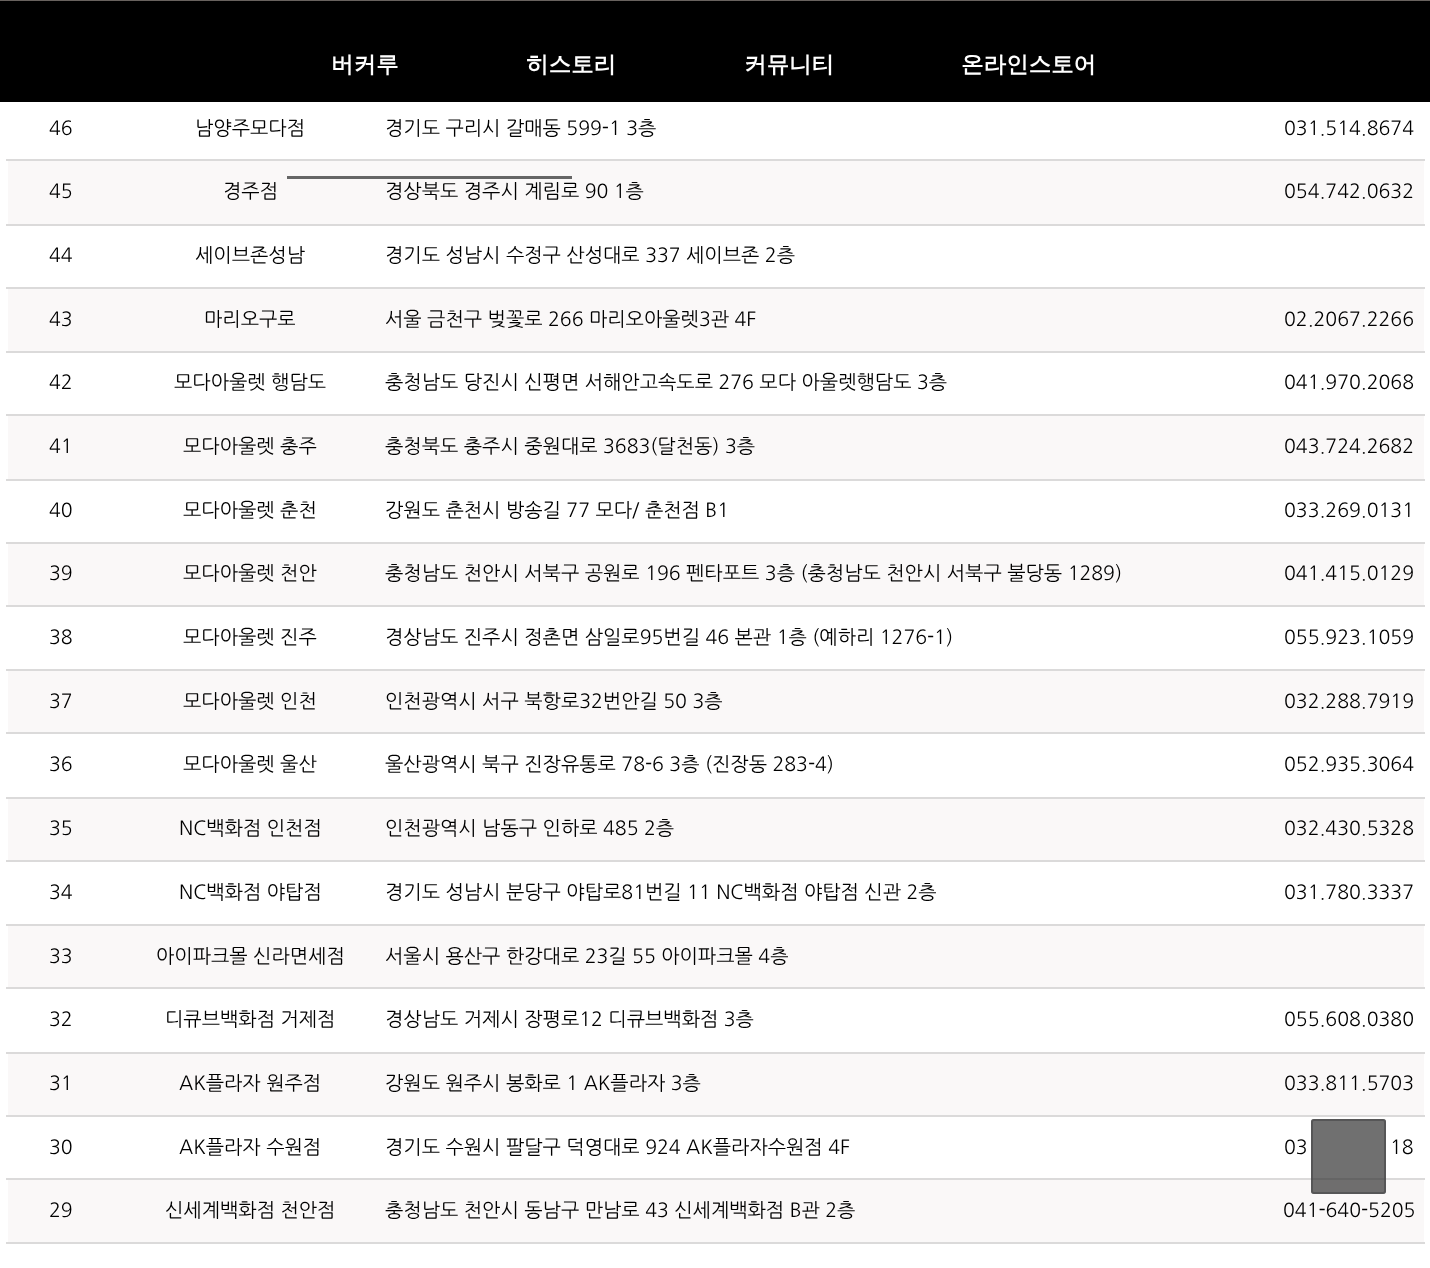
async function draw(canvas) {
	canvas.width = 1430;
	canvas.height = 1268;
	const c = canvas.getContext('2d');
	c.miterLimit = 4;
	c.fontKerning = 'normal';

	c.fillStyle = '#fff';
	c.fillRect(0, 0, 1430, 1268);
	c.fillStyle = '#68625e';
	c.fillRect(0, 0, 1430, 1);
	c.fillStyle = '#000';
	c.fillRect(0, 1, 1430, 101);
	c.font = 'bold 22.5px WenQuanYi Zen Hei';
	c.fillStyle = '#fff';
	for (const [text, x, y] of [
		['버커루', 331, 72],
		['히스토리', 526, 72],
		['커뮤니티', 744, 72],
		['온라인스토어', 961, 72],
	]) {
		c.fillText(text, x, y);
	}
	c.fillStyle = '#faf8f8';
	c.fillRect(8, 161, 1416, 63);
	c.fillStyle = '#666';
	c.fillRect(287, 176, 285, 3);
	c.font = '19.5px NanumGothic';
	c.fillStyle = '#000';
	for (const [text, x, y] of [
		['46', 49, 135],
		['남양주모다점', 195, 135],
		['경기도 구리시 갈매동 599-1 3층', 385, 135],
	]) {
		c.fillText(text, x, y);
	}
	c.fillStyle = '#dbdada';
	c.fillRect(6, 159, 1419, 2);
	c.fillStyle = '#000';
	for (const [text, x, y] of [
		['031.514.8674', 1284, 135],
		['45', 49, 198],
		['경주점', 223, 198],
		['경상북도 경주시 계림로 90 1층', 385, 198],
	]) {
		c.fillText(text, x, y);
	}
	c.fillStyle = '#dbdada';
	c.fillRect(6, 224, 1419, 2);
	c.fillStyle = '#000';
	for (const [text, x, y] of [
		['054.742.0632', 1284, 198],
		['44', 49, 262],
		['세이브존성남', 195, 262],
		['경기도 성남시 수정구 산성대로 337 세이브존 2층', 385, 262],
	]) {
		c.fillText(text, x, y);
	}
	c.fillStyle = '#dbdada';
	c.fillRect(6, 287, 1419, 2);
	c.fillStyle = '#faf8f8';
	c.fillRect(8, 289, 1416, 62);
	c.fillStyle = '#000';
	for (const [text, x, y] of [
		['43', 49, 326],
		['마리오구로', 204, 326],
		['서울 금천구 벚꽃로 266 마리오아울렛3관 4F', 385, 326],
	]) {
		c.fillText(text, x, y);
	}
	c.fillStyle = '#dbdada';
	c.fillRect(6, 351, 1419, 2);
	c.fillStyle = '#000';
	for (const [text, x, y] of [
		['02.2067.2266', 1284, 326],
		['42', 49, 389],
		['모다아울렛 행담도', 174, 389],
		['충청남도 당진시 신평면 서해안고속도로 276 모다 아울렛행담도 3층', 385, 389],
	]) {
		c.fillText(text, x, y);
	}
	c.fillStyle = '#dbdada';
	c.fillRect(6, 414, 1419, 2);
	c.fillStyle = '#000';
	c.fillText('041.970.2068', 1284, 389);
	c.fillStyle = '#faf8f8';
	c.fillRect(8, 416, 1416, 63);
	c.fillStyle = '#000';
	for (const [text, x, y] of [
		['41', 49, 453],
		['모다아울렛 충주', 183, 453],
		['충청북도 충주시 중원대로 3683(달천동) 3층', 385, 453],
	]) {
		c.fillText(text, x, y);
	}
	c.fillStyle = '#dbdada';
	c.fillRect(6, 479, 1419, 2);
	c.fillStyle = '#000';
	for (const [text, x, y] of [
		['043.724.2682', 1284, 453],
		['40', 49, 517],
		['모다아울렛 춘천', 183, 517],
		['강원도 춘천시 방송길 77 모다/ 춘천점 B1', 385, 517],
	]) {
		c.fillText(text, x, y);
	}
	c.fillStyle = '#dbdada';
	c.fillRect(6, 542, 1419, 2);
	c.fillStyle = '#000';
	c.fillText('033.269.0131', 1284, 517);
	c.fillStyle = '#faf8f8';
	c.fillRect(8, 544, 1416, 61);
	c.fillStyle = '#000';
	for (const [text, x, y] of [
		['39', 49, 580],
		['모다아울렛 천안', 183, 580],
		['충청남도 천안시 서북구 공원로 196 펜타포트 3층 (충청남도 천안시 서북구 불당동 1289)', 385, 580],
	]) {
		c.fillText(text, x, y);
	}
	c.fillStyle = '#dbdada';
	c.fillRect(6, 605, 1419, 2);
	c.fillStyle = '#000';
	for (const [text, x, y] of [
		['041.415.0129', 1284, 580],
		['38', 49, 644],
		['모다아울렛 진주', 183, 644],
		['경상남도 진주시 정촌면 삼일로95번길 46 본관 1층 (예하리 1276-1)', 385, 644],
	]) {
		c.fillText(text, x, y);
	}
	c.fillStyle = '#dbdada';
	c.fillRect(6, 669, 1419, 2);
	c.fillStyle = '#000';
	c.fillText('055.923.1059', 1284, 644);
	c.fillStyle = '#faf8f8';
	c.fillRect(8, 671, 1416, 61);
	c.fillStyle = '#000';
	for (const [text, x, y] of [
		['37', 49, 708],
		['모다아울렛 인천', 183, 708],
		['인천광역시 서구 북항로32번안길 50 3층', 385, 708],
	]) {
		c.fillText(text, x, y);
	}
	c.fillStyle = '#dbdada';
	c.fillRect(6, 732, 1419, 2);
	c.fillStyle = '#000';
	for (const [text, x, y] of [
		['032.288.7919', 1284, 708],
		['36', 49, 771],
		['모다아울렛 울산', 183, 771],
		['울산광역시 북구 진장유통로 78-6 3층 (진장동 283-4)', 385, 771],
	]) {
		c.fillText(text, x, y);
	}
	c.fillStyle = '#dbdada';
	c.fillRect(6, 797, 1419, 2);
	c.fillStyle = '#000';
	c.fillText('052.935.3064', 1284, 771);
	c.fillStyle = '#faf8f8';
	c.fillRect(8, 799, 1416, 61);
	c.fillStyle = '#000';
	for (const [text, x, y] of [
		['35', 49, 835],
		['NC백화점 인천점', 179, 835],
		['인천광역시 남동구 인하로 485 2층', 385, 835],
	]) {
		c.fillText(text, x, y);
	}
	c.fillStyle = '#dbdada';
	c.fillRect(6, 860, 1419, 2);
	c.fillStyle = '#000';
	for (const [text, x, y] of [
		['032.430.5328', 1284, 835],
		['34', 49, 899],
		['NC백화점 야탑점', 179, 899],
		['경기도 성남시 분당구 야탑로81번길 11 NC백화점 야탑점 신관 2층', 385, 899],
	]) {
		c.fillText(text, x, y);
	}
	c.fillStyle = '#dbdada';
	c.fillRect(6, 924, 1419, 2);
	c.fillStyle = '#000';
	c.fillText('031.780.3337', 1284, 899);
	c.fillStyle = '#faf8f8';
	c.fillRect(8, 926, 1416, 61);
	c.fillStyle = '#000';
	for (const [text, x, y] of [
		['33', 49, 963],
		['아이파크몰 신라면세점', 156, 963],
		['서울시 용산구 한강대로 23길 55 아이파크몰 4층', 385, 963],
	]) {
		c.fillText(text, x, y);
	}
	c.fillStyle = '#dbdada';
	c.fillRect(6, 987, 1419, 2);
	c.fillStyle = '#000';
	for (const [text, x, y] of [
		['32', 49, 1026],
		['디큐브백화점 거제점', 165, 1026],
		['경상남도 거제시 장평로12 디큐브백화점 3층', 385, 1026],
	]) {
		c.fillText(text, x, y);
	}
	c.fillStyle = '#dbdada';
	c.fillRect(6, 1052, 1419, 2);
	c.fillStyle = '#000';
	c.fillText('055.608.0380', 1284, 1026);
	c.fillStyle = '#faf8f8';
	c.fillRect(8, 1054, 1416, 61);
	c.fillStyle = '#000';
	for (const [text, x, y] of [
		['31', 49, 1090],
		['AK플라자 원주점', 179, 1090],
		['강원도 원주시 봉화로 1 AK플라자 3층', 385, 1090],
	]) {
		c.fillText(text, x, y);
	}
	c.fillStyle = '#dbdada';
	c.fillRect(6, 1115, 1419, 2);
	c.fillStyle = '#000';
	for (const [text, x, y] of [
		['033.811.5703', 1284, 1090],
		['30', 49, 1154],
		['AK플라자 수원점', 179, 1154],
		['경기도 수원시 팔달구 덕영대로 924 AK플라자수원점 4F', 385, 1154],
	]) {
		c.fillText(text, x, y);
	}
	c.fillStyle = '#dbdada';
	c.fillRect(6, 1178, 1419, 2);
	c.fillStyle = '#000';
	c.fillText('03', 1284, 1154);
	c.fillText('18', 1390, 1154);
	c.fillStyle = '#faf8f8';
	c.fillRect(8, 1180, 1416, 62);
	c.fillStyle = '#000';
	for (const [text, x, y] of [
		['29', 49, 1217],
		['신세계백화점 천안점', 165, 1217],
		['충청남도 천안시 동남구 만남로 43 신세계백화점 B관 2층', 385, 1217],
	]) {
		c.fillText(text, x, y);
	}
	c.fillStyle = '#dbdada';
	c.fillRect(6, 1242, 1419, 2);
	c.fillStyle = '#000';
	c.fillText('041-640-5205', 1283, 1217);
	c.fillStyle = '#333333b3';
	c.beginPath();
	c.roundRect(1311, 1119, 75, 75, 3);
	c.fill();
	c.beginPath();
	c.roundRect(1312, 1120, 73, 73, 2);
	c.strokeStyle = '#4b4c4db3';
	c.lineWidth = 2;
	c.stroke();
}

draw(document.querySelector('canvas'));
